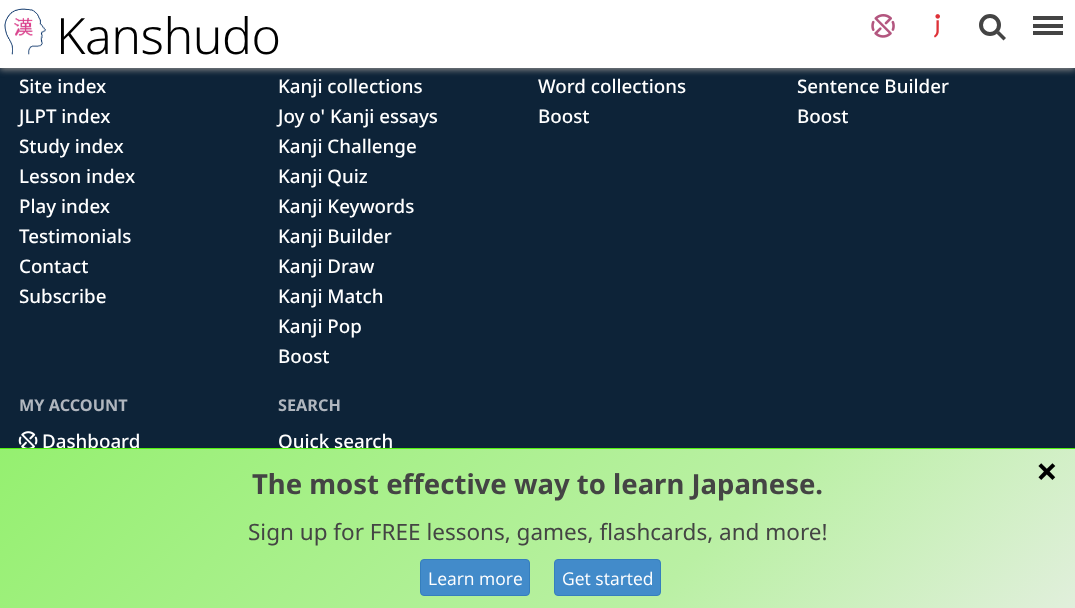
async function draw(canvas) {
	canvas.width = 1075;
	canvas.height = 608;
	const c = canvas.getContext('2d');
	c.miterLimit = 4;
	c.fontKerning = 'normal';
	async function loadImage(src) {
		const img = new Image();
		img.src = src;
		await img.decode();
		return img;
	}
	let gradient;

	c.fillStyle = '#0d2338';
	c.fillRect(0, 0, 1075, 608);
	c.fillStyle = '#888';
	c.filter = 'blur(3px)';
	c.beginPath();
	c.rect(0, 3, 1075, 67);
	c.fill();
	c.filter = 'none';
	c.fillStyle = '#fff';
	c.fillRect(0, 0, 1075, 68);
	c.drawImage(await loadImage('img1.png'), 4, 8, 42, 47);
	c.letterSpacing = '-0.5px';
	c.font = '300 50px Noto Sans';
	c.fillStyle = '#000';
	c.fillText('Kanshudo', 56, 54);
	c.drawImage(await loadImage('img2.png'), 871, 14, 24, 24);
	c.drawImage(await loadImage('img3.png'), 934, 14, 6, 24);
	c.beginPath();
	c.arc(990, 25, 9, 0, 2 * Math.PI);
	c.strokeStyle = '#444';
	c.lineWidth = 4;
	c.stroke();
	c.fillStyle = '#444';
	c.beginPath();
	c.moveTo(999, 31);
	c.lineTo(1006, 38);
	c.lineTo(1003.5, 40.5);
	c.lineTo(996.5, 33.5);
	c.closePath();
	c.fill();
	for (const [x, y, w, h, color] of [
		[1033, 24, 30, 4, '#444'],
		[1033, 16, 30, 4, '#444'],
		[1033, 31, 30, 4, '#444'],
	]) {
		c.fillStyle = color;
		c.fillRect(x, y, w, h);
	}
	c.letterSpacing = '0px';
	c.font = '500 18.75px Noto Sans';
	c.fillStyle = '#fff';
	for (const [text, x, y] of [
		['Site index', 19, 93],
		['JLPT index', 19, 123],
		['Study index', 19, 153],
		['Lesson index', 19, 183],
		['Play index', 19, 213],
		['Testimonials', 19, 243],
		['Contact', 19, 273],
		['Subscribe', 19, 303],
		['Kanji collections', 278, 93],
		['Joy o\' Kanji essays', 278, 123],
		['Kanji Challenge', 278, 153],
		['Kanji Quiz', 278, 183],
		['Kanji Keywords', 278, 213],
		['Kanji Builder', 278, 243],
		['Kanji Draw', 278, 273],
		['Kanji Match', 278, 303],
		['Kanji Pop', 278, 333],
		['Boost', 278, 363],
		['Word collections', 538, 93],
		['Boost', 538, 123],
		['Sentence Builder', 797, 93],
		['Boost', 797, 123],
	]) {
		c.fillText(text, x, y);
	}
	c.font = 'bold 16.25px Noto Sans';
	c.fillStyle = '#b0b6be';
	c.fillText('MY ACCOUNT', 19, 411);
	c.drawImage(await loadImage('img4.png'), 18, 431, 20, 17);
	c.font = '500 18.75px Noto Sans';
	c.fillStyle = '#fff';
	c.fillText('Dashboard', 42, 448);
	c.font = 'bold 16.25px Noto Sans';
	c.fillStyle = '#b0b6be';
	c.fillText('SEARCH', 278, 411);
	c.font = '500 18.75px Noto Sans';
	c.fillStyle = '#fff';
	c.fillText('Quick search', 278, 448);
	gradient = c.createLinearGradient(229, 220, 846, 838);
	gradient.addColorStop(0, '#95f070');
	gradient.addColorStop(0.65, '#baf0a4');
	gradient.addColorStop(1, '#e1efdc');
	c.fillStyle = gradient;
	c.fillRect(0, 449, 1075, 159);
	c.fillStyle = '#51f010';
	c.fillRect(0, 448, 1075, 1);
	c.font = 'bold 27.5px Noto Sans';
	c.fillStyle = '#444';
	c.fillText('The most effective way to learn Japanese.', 252, 494);
	c.font = 'bold 38px Noto Sans';
	c.fillStyle = '#000';
	c.fillText('×', 1036, 485);
	c.font = '22.5px Noto Sans';
	c.fillStyle = '#444';
	c.fillText('Sign up for FREE lessons, games, flashcards, and more!', 248, 540);
	c.fillStyle = '#428bca';
	c.beginPath();
	c.roundRect(420.5, 559.5, 109, 36, 3.5);
	c.fill();
	c.strokeStyle = '#357ebd';
	c.lineWidth = 1;
	c.stroke();
	c.font = '17.5px Open Sans';
	c.fillStyle = '#fff';
	c.fillText('Learn more', 428, 585);
	c.fillStyle = '#428bca';
	c.beginPath();
	c.roundRect(554.5, 559.5, 106, 36, 3.5);
	c.fill();
	c.stroke();
	c.fillStyle = '#fff';
	c.fillText('Get started', 562, 585);
}

draw(document.querySelector('canvas'));
